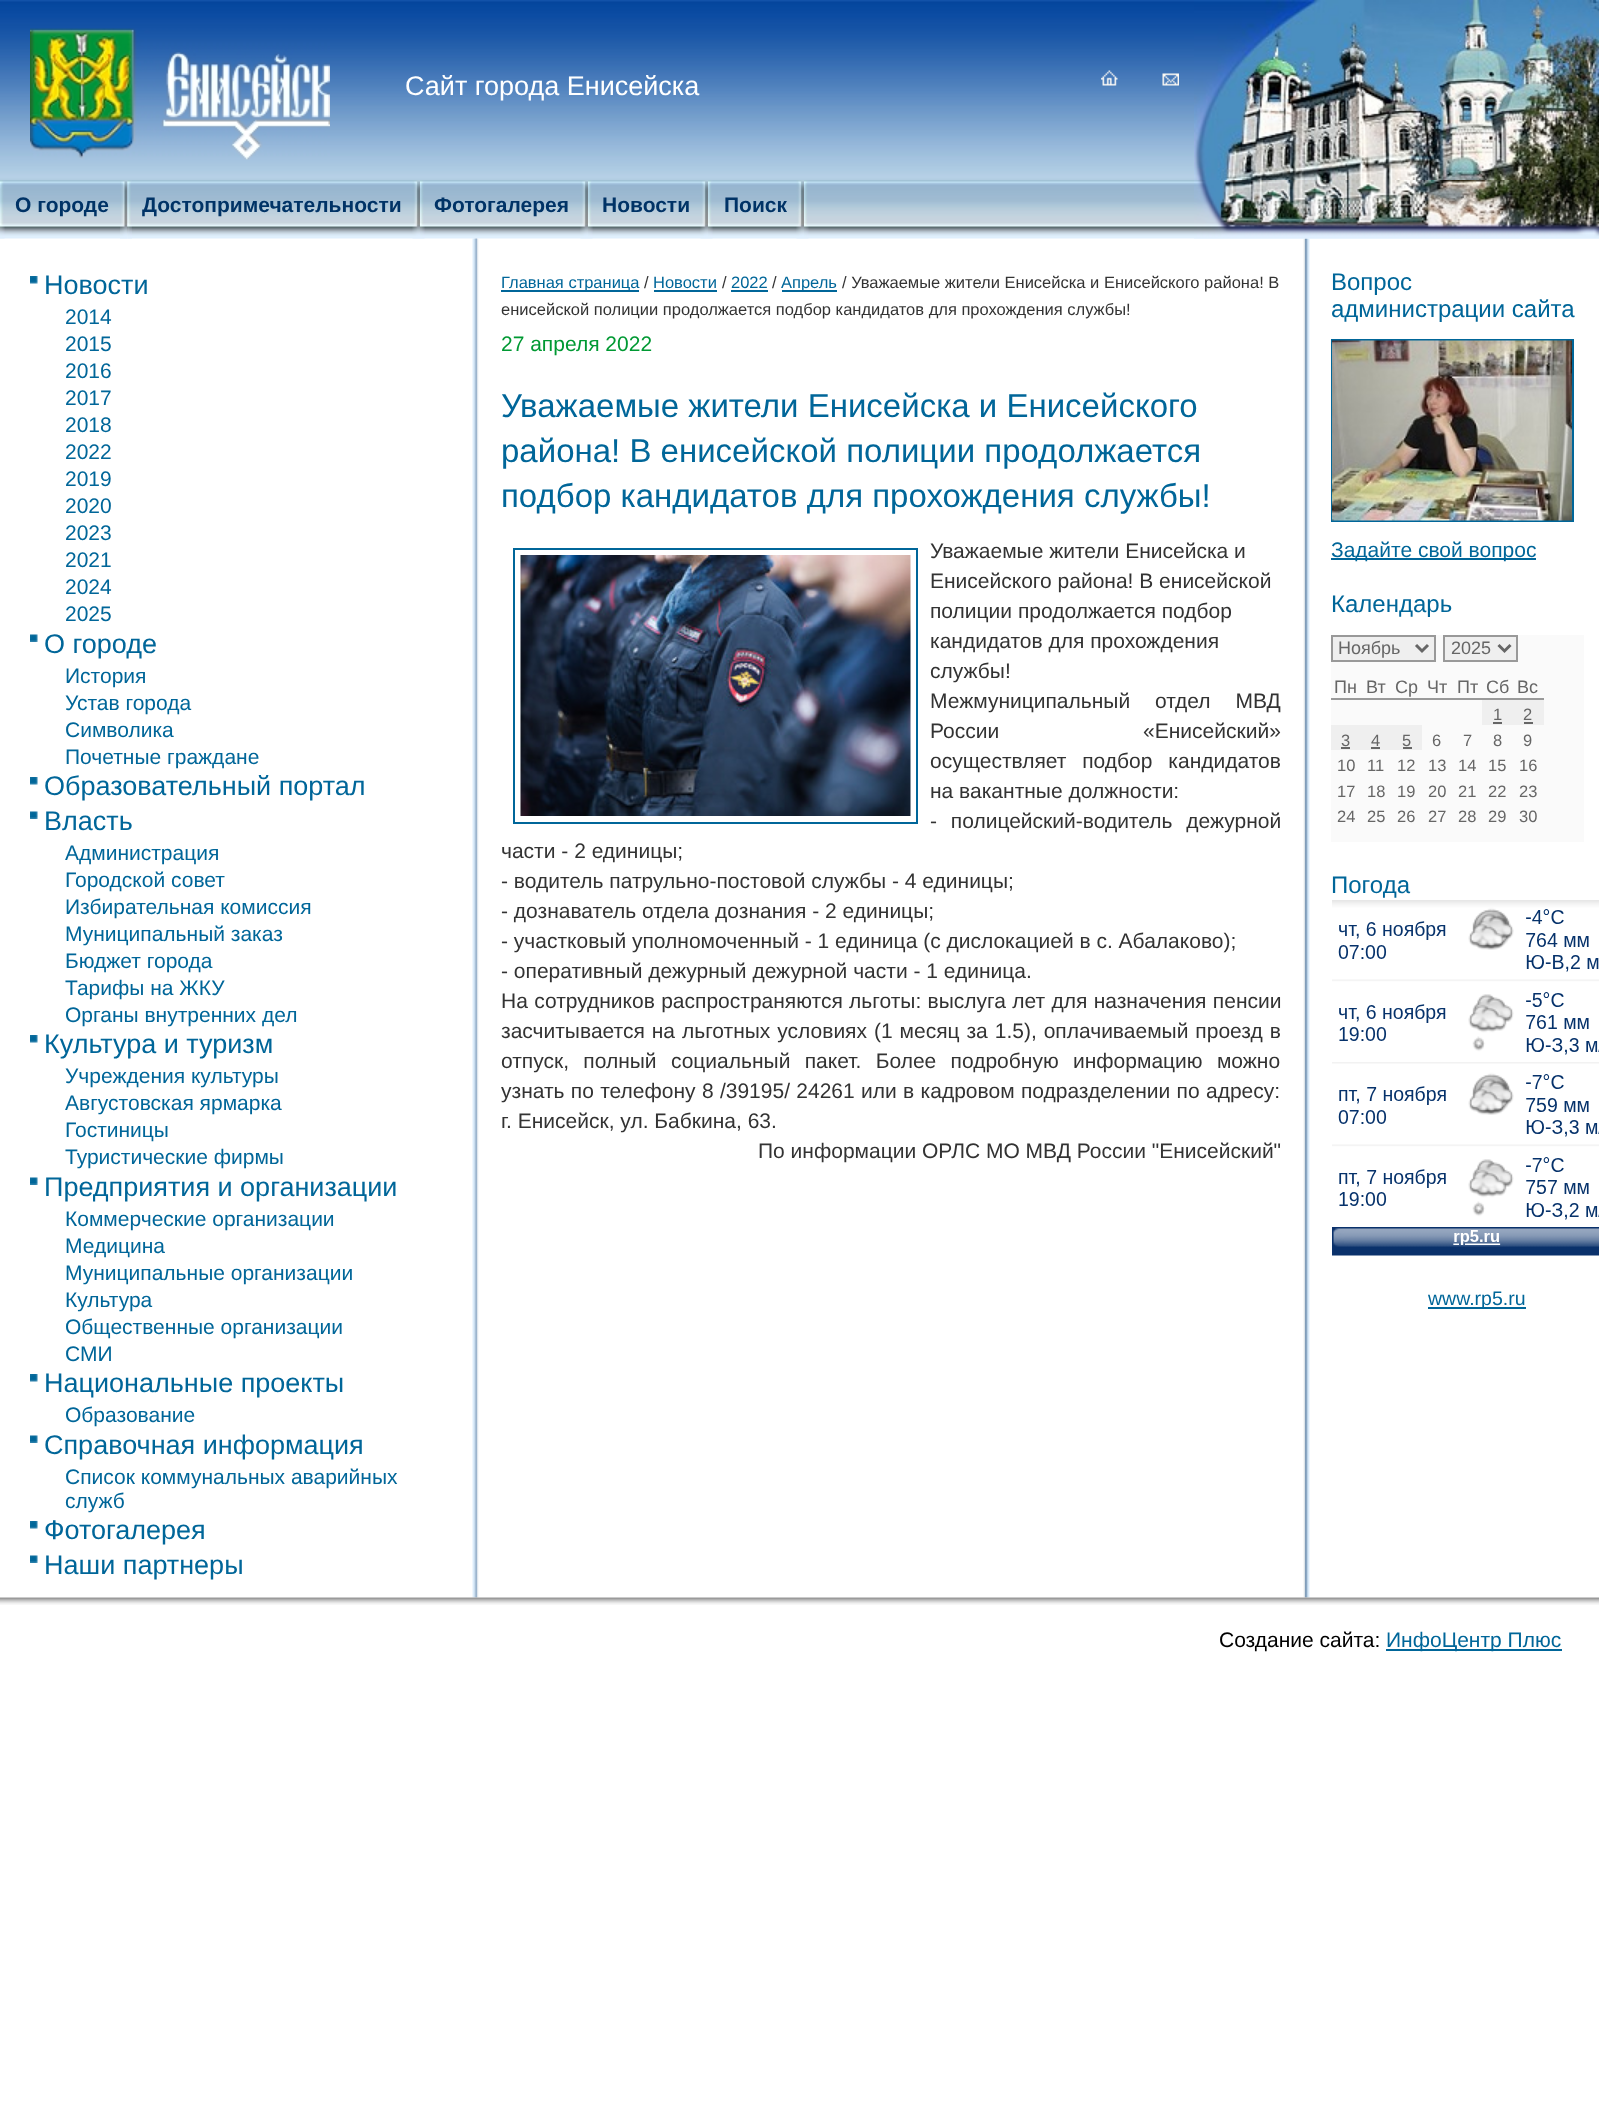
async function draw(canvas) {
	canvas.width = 1599;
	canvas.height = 2105;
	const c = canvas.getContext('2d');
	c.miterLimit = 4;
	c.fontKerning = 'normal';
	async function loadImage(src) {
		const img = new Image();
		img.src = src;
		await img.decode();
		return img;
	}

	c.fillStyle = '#fff';
	c.fillRect(0, 0, 1599, 2105);
	c.drawImage(await loadImage('img1.png'), 0, 0, 1194, 180);
	c.drawImage(await loadImage('img2.png'), 30, 28, 300, 132);
	c.font = '27px Liberation Sans';
	c.fillText('Сайт города Енисейска', 405, 95);
	c.drawImage(await loadImage('img3.png'), 1101, 70, 17, 16);
	c.drawImage(await loadImage('img4.png'), 1162, 73, 17, 13);
	c.drawImage(await loadImage('img5.png'), 1194, 0, 405, 180);
	c.drawImage(await loadImage('img6.png'), 0, 180, 128, 59);
	c.drawImage(await loadImage('img7.png'), 0, 180, 5, 59);
	c.drawImage(await loadImage('img8.png'), 120, 180, 8, 59);
	c.font = 'bold 21px Liberation Sans';
	c.fillStyle = '#036';
	c.fillText('О городе', 15, 212);
	c.drawImage(await loadImage('img9.png'), 127, 180, 293, 59);
	c.drawImage(await loadImage('img10.png'), 127, 180, 5, 59);
	c.drawImage(await loadImage('img11.png'), 412, 180, 8, 59);
	c.fillText('Достопримечательности', 142, 212);
	c.drawImage(await loadImage('img12.png'), 420, 180, 168, 59);
	c.drawImage(await loadImage('img13.png'), 420, 180, 5, 59);
	c.drawImage(await loadImage('img11.png'), 580, 180, 8, 59);
	c.fillText('Фотогалерея', 434, 212);
	c.drawImage(await loadImage('img14.png'), 588, 180, 120, 59);
	c.drawImage(await loadImage('img13.png'), 588, 180, 5, 59);
	c.drawImage(await loadImage('img11.png'), 700, 180, 8, 59);
	c.fillText('Новости', 602, 212);
	c.drawImage(await loadImage('img15.png'), 708, 180, 96, 59);
	c.drawImage(await loadImage('img13.png'), 708, 180, 5, 59);
	c.drawImage(await loadImage('img16.png'), 796, 180, 8, 59);
	c.fillText('Поиск', 724, 212);
	c.drawImage(await loadImage('img17.png'), 804, 180, 795, 59);
	c.drawImage(await loadImage('img7.png'), 804, 180, 5, 59);
	c.drawImage(await loadImage('img23.png'), 1303, 238, 7, 1360);
	c.drawImage(await loadImage('img18.png'), 1194, 180, 405, 59);
	c.drawImage(await loadImage('img19.png'), 472, 238, 7, 1360);
	c.drawImage(await loadImage('img20.png'), 30, 276, 8, 8);
	c.font = '27px Liberation Sans';
	c.fillStyle = '#069';
	c.fillText('Новости', 44, 294);
	c.font = '21px Liberation Sans';
	for (const [text, x, y] of [
		['2014', 65, 324],
		['2015', 65, 351],
		['2016', 65, 378],
		['2017', 65, 405],
		['2018', 65, 432],
		['2022', 65, 459],
		['2019', 65, 486],
		['2020', 65, 513],
		['2023', 65, 540],
		['2021', 65, 567],
		['2024', 65, 594],
		['2025', 65, 621],
	]) {
		c.fillText(text, x, y);
	}
	c.drawImage(await loadImage('img21.png'), 30, 634, 8, 8);
	c.font = '27px Liberation Sans';
	c.fillText('О городе', 44, 653);
	c.font = '21px Liberation Sans';
	for (const [text, x, y] of [
		['История', 65, 683],
		['Устав города', 65, 710],
		['Символика', 65, 737],
		['Почетные граждане', 65, 764],
	]) {
		c.fillText(text, x, y);
	}
	c.drawImage(await loadImage('img20.png'), 30, 777, 8, 8);
	c.font = '27px Liberation Sans';
	c.fillText('Образовательный портал', 44, 795);
	c.drawImage(await loadImage('img21.png'), 30, 811, 8, 8);
	c.fillText('Власть', 44, 830);
	c.font = '21px Liberation Sans';
	for (const [text, x, y] of [
		['Администрация', 65, 860],
		['Городской совет', 65, 887],
		['Избирательная комиссия', 65, 914],
		['Муниципальный заказ', 65, 941],
		['Бюджет города', 65, 968],
		['Тарифы на ЖКУ', 65, 995],
		['Органы внутренних дел', 65, 1022],
	]) {
		c.fillText(text, x, y);
	}
	c.drawImage(await loadImage('img20.png'), 30, 1035, 8, 8);
	c.font = '27px Liberation Sans';
	c.fillText('Культура и туризм', 44, 1053);
	c.font = '21px Liberation Sans';
	for (const [text, x, y] of [
		['Учреждения культуры', 65, 1083],
		['Августовская ярмарка', 65, 1110],
		['Гостиницы', 65, 1137],
		['Туристические фирмы', 65, 1164],
	]) {
		c.fillText(text, x, y);
	}
	c.drawImage(await loadImage('img21.png'), 30, 1177, 8, 8);
	c.font = '27px Liberation Sans';
	c.fillText('Предприятия и организации', 44, 1196);
	c.font = '21px Liberation Sans';
	for (const [text, x, y] of [
		['Коммерческие организации', 65, 1226],
		['Медицина', 65, 1253],
		['Муниципальные организации', 65, 1280],
		['Культура', 65, 1307],
		['Общественные организации', 65, 1334],
		['СМИ', 65, 1361],
	]) {
		c.fillText(text, x, y);
	}
	c.drawImage(await loadImage('img20.png'), 30, 1374, 8, 8);
	c.font = '27px Liberation Sans';
	c.fillText('Национальные проекты', 44, 1392);
	c.font = '21px Liberation Sans';
	c.fillText('Образование', 65, 1422);
	c.drawImage(await loadImage('img21.png'), 30, 1435, 8, 8);
	c.font = '27px Liberation Sans';
	c.fillText('Справочная информация', 44, 1454);
	c.font = '21px Liberation Sans';
	c.fillText('Список коммунальных аварийных', 65, 1484);
	c.fillText('служб', 65, 1508);
	c.drawImage(await loadImage('img20.png'), 30, 1521, 8, 8);
	c.font = '27px Liberation Sans';
	c.fillText('Фотогалерея', 44, 1539);
	c.drawImage(await loadImage('img21.png'), 30, 1555, 8, 8);
	c.fillText('Наши партнеры', 44, 1574);
	c.fillRect(501, 290, 138, 2);
	c.font = '16.5px Liberation Sans';
	c.fillText('Главная страница', 501, 288);
	c.fillStyle = '#333';
	c.fillText('/', 644, 288);
	c.fillStyle = '#069';
	c.fillText('Новости', 653, 288);
	c.fillRect(654, 290, 63, 2);
	c.fillStyle = '#333';
	c.fillText('/', 722, 288);
	c.fillStyle = '#069';
	c.fillText('2022', 731, 288);
	c.fillRect(731, 290, 37, 2);
	c.fillStyle = '#333';
	c.fillText('/', 772, 288);
	c.fillStyle = '#069';
	c.fillRect(782, 290, 55, 2);
	c.fillText('Апрель', 781, 288);
	c.fillStyle = '#333';
	c.fillText('/ Уважаемые жители Енисейска и Енисейского района! В', 842, 288);
	c.fillText('енисейской полиции продолжается подбор кандидатов для прохождения службы!', 501, 315);
	c.font = '21px Liberation Sans';
	c.fillStyle = '#093';
	c.fillText('27 апреля 2022', 501, 351);
	c.font = '33px Liberation Sans';
	c.fillStyle = '#069';
	for (const [text, x, y] of [
		['Уважаемые жители Енисейска и Енисейского', 501, 417],
		['района! В енисейской полиции продолжается', 501, 462],
		['подбор кандидатов для прохождения службы!', 501, 507],
	]) {
		c.fillText(text, x, y);
	}
	c.strokeStyle = '#069';
	c.lineWidth = 2;
	c.strokeRect(514, 549, 403, 274);
	c.drawImage(await loadImage('img22.png'), 520, 555, 391, 261);
	c.font = '21px Liberation Sans';
	c.fillStyle = '#333';
	for (const [text, x, y] of [
		['Уважаемые жители Енисейска и', 930, 558],
		['Енисейского района! В енисейской', 930, 588],
		['полиции продолжается подбор', 930, 618],
		['кандидатов для прохождения', 930, 648],
		['службы!', 930, 678],
	]) {
		c.fillText(text, x, y);
	}
	c.wordSpacing = '19px';
	c.fillText('Межмуниципальный отдел МВД', 930, 708);
	c.wordSpacing = '138px';
	c.fillText('России «Енисейский»', 930, 738);
	c.wordSpacing = '10px';
	c.fillText('осуществляет подбор кандидатов', 930, 768);
	c.wordSpacing = '0px';
	c.fillText('на вакантные должности:', 930, 798);
	c.wordSpacing = '8px';
	c.fillText('- полицейский-водитель дежурной', 930, 828);
	c.wordSpacing = '0px';
	for (const [text, x, y] of [
		['части - 2 единицы;', 501, 858],
		['- водитель патрульно-постовой службы - 4 единицы;', 501, 888],
		['- дознаватель отдела дознания - 2 единицы;', 501, 918],
		['- участковый уполномоченный - 1 единица (с дислокацией в с. Абалаково);', 501, 948],
		['- оперативный дежурный дежурной части - 1 единица.', 501, 978],
	]) {
		c.fillText(text, x, y);
	}
	c.wordSpacing = '0.5px';
	c.fillText('На сотрудников распространяются льготы: выслуга лет для назначения пенсии', 501, 1008);
	c.wordSpacing = '1.1px';
	c.fillText('засчитывается на льготных условиях (1 месяц за 1.5), оплачиваемый проезд в', 501, 1038);
	c.wordSpacing = '8.5px';
	c.fillText('отпуск, полный социальный пакет. Более подробную информацию можно', 501, 1068);
	c.wordSpacing = '0.5px';
	c.fillText('узнать по телефону 8 /39195/ 24261 или в кадровом подразделении по адресу:', 501, 1098);
	c.wordSpacing = '0px';
	c.fillText('г. Енисейск, ул. Бабкина, 63.', 501, 1128);
	c.fillText('По информации ОРЛС МО МВД России "Енисейский"', 758, 1158);
	c.font = '24px Liberation Sans';
	c.fillStyle = '#069';
	c.fillText('Вопрос', 1331, 290);
	c.fillText('администрации сайта', 1331, 317);
	c.strokeRect(1332, 340, 241, 181);
	c.drawImage(await loadImage('img24.png'), 1332, 340, 240, 181);
	c.fillRect(1331, 558, 205, 2);
	c.font = '21px Liberation Sans';
	c.fillText('Задайте свой вопрос', 1331, 557);
	c.font = '24px Liberation Sans';
	c.fillText('Календарь', 1331, 612);
	c.fillStyle = '#fafafa';
	c.fillRect(1331, 635, 253, 207);
	c.fillStyle = '#efefef';
	c.beginPath();
	c.rect(1332, 636, 103, 25);
	c.fill();
	c.strokeStyle = '#999';
	c.stroke();
	c.beginPath();
	c.moveTo(1416, 645);
	c.lineTo(1422, 651);
	c.lineTo(1428, 645);
	c.strokeStyle = '#666';
	c.lineWidth = 3;
	c.stroke();
	c.font = '18px Liberation Sans';
	c.fillStyle = '#666';
	c.fillText('Ноябрь', 1338, 654);
	c.fillStyle = '#efefef';
	c.beginPath();
	c.rect(1444, 636, 73, 25);
	c.fill();
	c.strokeStyle = '#999';
	c.lineWidth = 2;
	c.stroke();
	c.beginPath();
	c.moveTo(1498.5, 645);
	c.lineTo(1504.5, 651);
	c.lineTo(1510.5, 645);
	c.strokeStyle = '#666';
	c.lineWidth = 3;
	c.stroke();
	c.fillStyle = '#666';
	for (const [text, x, y] of [
		['2025', 1451, 654],
		['Пн', 1334, 693],
		['Вт', 1366, 693],
		['Ср', 1395, 693],
		['Чт', 1427, 693],
		['Пт', 1457, 693],
		['Сб', 1486, 693],
	]) {
		c.fillText(text, x, y);
	}
	c.fillStyle = '#999';
	c.fillRect(1331, 698, 213, 2);
	c.fillStyle = '#666';
	c.fillText('Вс', 1517, 693);
	c.fillStyle = '#efefef';
	c.fillRect(1482, 700, 62, 25);
	c.font = '16.5px Liberation Sans';
	c.fillStyle = '#666';
	c.fillText('1', 1493, 720);
	c.fillRect(1493, 722, 9, 2);
	c.fillText('2', 1523, 720);
	c.fillRect(1524, 722, 9, 2);
	c.fillStyle = '#efefef';
	c.fillRect(1331, 725, 91, 25);
	c.fillStyle = '#666';
	c.fillText('3', 1341, 746);
	c.fillRect(1341, 747, 9, 2);
	c.fillText('4', 1371, 746);
	c.fillRect(1371, 747, 9, 2);
	c.fillText('5', 1402, 746);
	c.fillRect(1403, 747, 9, 2);
	for (const [text, x, y] of [
		['6', 1432, 746],
		['7', 1463, 746],
		['8', 1493, 746],
		['9', 1523, 746],
		['10', 1337, 771],
		['11', 1367, 771],
		['12', 1397, 771],
		['13', 1428, 771],
		['14', 1458, 771],
		['15', 1488, 771],
		['16', 1519, 771],
		['17', 1337, 797],
		['18', 1367, 797],
		['19', 1397, 797],
		['20', 1428, 797],
		['21', 1458, 797],
		['22', 1488, 797],
		['23', 1519, 797],
		['24', 1337, 822],
		['25', 1367, 822],
		['26', 1397, 822],
		['27', 1428, 822],
		['28', 1458, 822],
		['29', 1488, 822],
		['30', 1519, 822],
	]) {
		c.fillText(text, x, y);
	}
	c.font = '24px Liberation Sans';
	c.fillStyle = '#069';
	c.fillText('Погода', 1331, 893);
	c.drawImage(await loadImage('img25.png'), 1332, 900, 267, 356);
	c.fillRect(1428, 1307, 98, 2);
	c.font = '19.5px Liberation Sans';
	c.fillText('www.rp5.ru', 1428, 1305);
	c.drawImage(await loadImage('img26.png'), 0, 1597, 1599, 8);
	c.font = '21px Liberation Sans';
	c.fillStyle = '#000';
	c.fillText('Создание сайта:', 1219, 1647);
	c.fillStyle = '#069';
	c.fillRect(1386, 1649, 176, 2);
	c.fillText('ИнфоЦентр Плюс', 1386, 1647);
}

draw(document.querySelector('canvas'));
